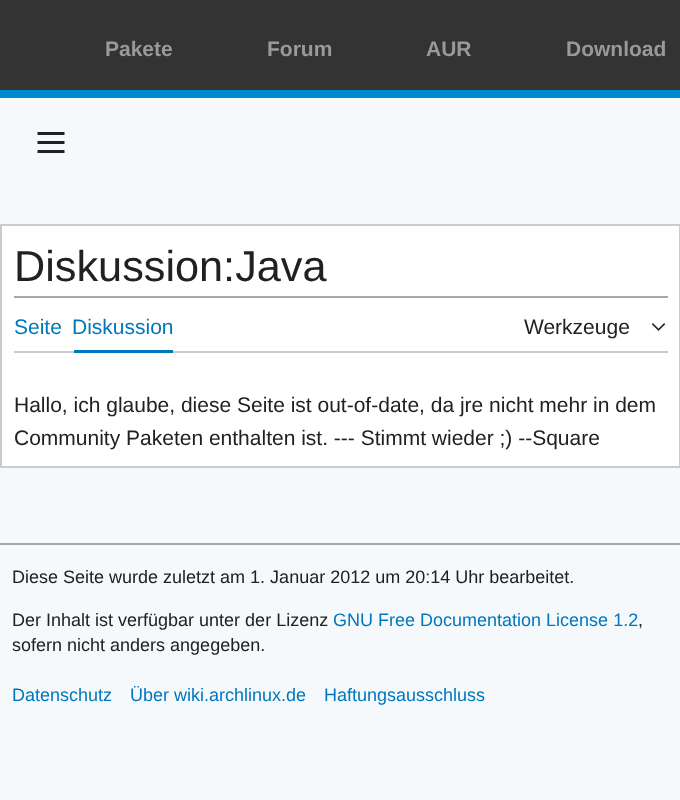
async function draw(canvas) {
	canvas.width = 680;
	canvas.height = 800;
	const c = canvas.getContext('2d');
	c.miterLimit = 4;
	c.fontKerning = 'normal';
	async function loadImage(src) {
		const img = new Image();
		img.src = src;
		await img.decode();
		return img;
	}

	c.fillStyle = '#f6f9fc';
	c.fillRect(0, 0, 680, 800);
	c.fillStyle = '#333';
	c.fillRect(0, 0, 680, 90);
	c.fillStyle = '#08c';
	c.fillRect(0, 90, 680, 8);
	c.font = 'bold 21px Liberation Sans';
	c.fillStyle = '#999';
	for (const [text, x, y] of [
		['Pakete', 105, 56],
		['Forum', 267, 56],
		['AUR', 426, 56],
		['Download', 566, 56],
	]) {
		c.fillText(text, x, y);
	}
	c.drawImage(await loadImage('img1.png'), 37, 132, 28, 21);
	c.fillStyle = '#fff';
	c.beginPath();
	c.rect(1, 225, 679, 242);
	c.fill();
	c.strokeStyle = '#ccc';
	c.lineWidth = 2;
	c.stroke();
	c.font = '43.25px Liberation Sans';
	c.fillStyle = '#202122';
	c.fillText('Diskussion:Java', 14, 281);
	c.fillStyle = '#a2a9b1';
	c.fillRect(14, 296, 654, 2);
	c.fillStyle = '#c8ccd1';
	c.beginPath();
	c.moveTo(14, 351);
	c.lineTo(14, 353);
	c.lineTo(668, 353);
	c.lineTo(668, 299);
	c.lineTo(668, 351);
	c.closePath();
	c.fill();
	c.font = '21px Liberation Sans';
	c.fillStyle = '#07b';
	c.fillText('Seite', 14, 334);
	c.fillRect(74, 350, 99, 3);
	c.fillText('Diskussion', 72, 334);
	c.fillStyle = '#202122';
	c.fillText('Werkzeuge', 524, 334);
	c.drawImage(await loadImage('img2.png'), 651, 323, 15, 8);
	c.fillText('Hallo, ich glaube, diese Seite ist out-of-date, da jre nicht mehr in dem', 14, 412);
	c.fillText('Community Paketen enthalten ist. --- Stimmt wieder ;) --Square', 14, 445);
	c.fillStyle = '#a2a9b1';
	c.fillRect(0, 543, 680, 2);
	c.font = '18px Liberation Sans';
	c.fillStyle = '#202122';
	c.fillText('Diese Seite wurde zuletzt am 1. Januar 2012 um 20:14 Uhr bearbeitet.', 12, 583);
	c.fillText('Der Inhalt ist verfügbar unter der Lizenz', 12, 626);
	c.fillStyle = '#07b';
	c.fillText('GNU Free Documentation License 1.2', 333, 626);
	c.fillStyle = '#202122';
	c.fillText(',', 638, 626);
	c.fillText('sofern nicht anders angegeben.', 12, 651);
	c.fillStyle = '#07b';
	for (const [text, x, y] of [
		['Datenschutz', 12, 701],
		['Über wiki.archlinux.de', 130, 701],
		['Haftungsausschluss', 324, 701],
	]) {
		c.fillText(text, x, y);
	}
}

draw(document.querySelector('canvas'));
